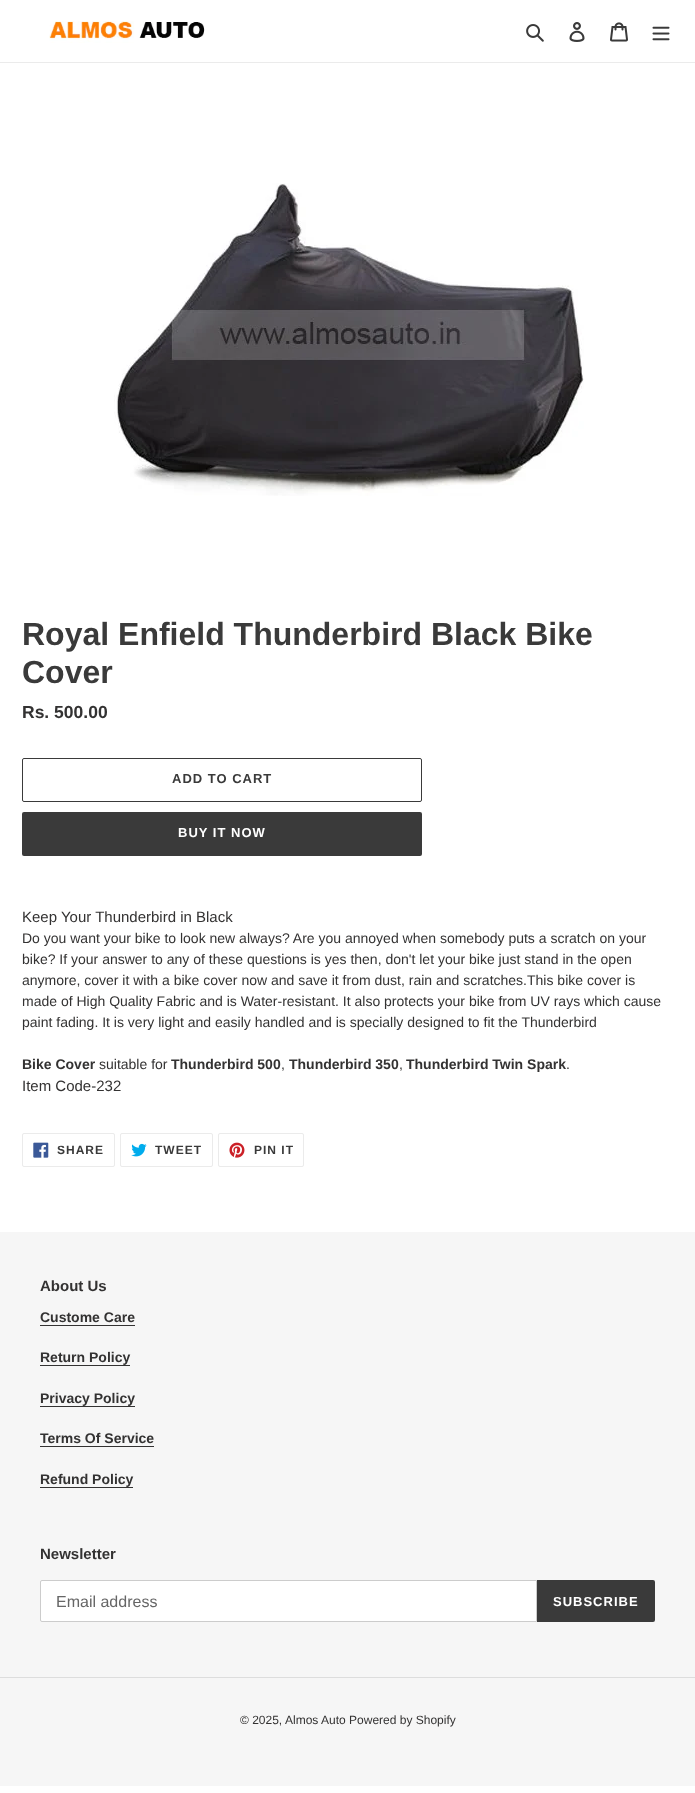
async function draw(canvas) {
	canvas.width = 695;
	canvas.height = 1793;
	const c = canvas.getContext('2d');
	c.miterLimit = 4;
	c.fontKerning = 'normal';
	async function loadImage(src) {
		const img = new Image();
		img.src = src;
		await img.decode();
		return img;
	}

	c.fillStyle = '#fff';
	c.fillRect(0, 0, 695, 1793);
	c.fillStyle = '#ebebeb';
	c.fillRect(0, 62, 695, 1);
	c.drawImage(await loadImage('img1.png'), 49, 21, 156, 22);
	c.drawImage(await loadImage('img2.png'), 526, 24, 18, 18);
	c.drawImage(await loadImage('img3.png'), 569, 22, 16, 20);
	c.drawImage(await loadImage('img4.png'), 610, 22, 18, 20);
	c.drawImage(await loadImage('img5.png'), 652, 26, 18, 15);
	c.drawImage(await loadImage('img6.png'), 114, 183, 470, 313);
	c.font = 'bold 32px Liberation Sans';
	c.fillStyle = '#3a3a3a';
	c.fillText('Royal Enfield Thunderbird Black Bike', 22, 645);
	c.fillText('Cover', 22, 683);
	c.font = 'bold 17.5px Liberation Sans';
	c.fillStyle = '#333232';
	c.fillText('Rs. 500.00', 22, 718);
	c.beginPath();
	c.roundRect(22.5, 758.5, 399, 43, 1.5);
	c.strokeStyle = '#3a3a3a';
	c.stroke();
	c.letterSpacing = '1px';
	c.font = 'bold 13px Liberation Sans';
	c.fillStyle = '#3a3a3a';
	c.fillText('ADD TO CART', 172, 783);
	c.beginPath();
	c.roundRect(22, 812, 400, 44, 2);
	c.fill();
	c.fillStyle = '#fff';
	c.fillText('BUY IT NOW', 178, 837);
	c.letterSpacing = '0px';
	c.font = '15px Liberation Sans';
	c.fillStyle = '#333232';
	c.fillText('Keep Your Thunderbird in Black', 22, 922);
	c.font = '14px Liberation Sans';
	for (const [text, x, y] of [
		['Do you want your bike to look new always? Are you annoyed when somebody puts a scratch on your', 22, 943],
		['bike? If your answer to any of these questions is yes then, don\'t let your bike just stand in the open', 22, 964],
		['anymore, cover it with a bike cover now and save it from dust, rain and scratches.This bike cover is', 22, 985],
		['made of High Quality Fabric and is Water-resistant. It also protects your bike from UV rays which cause', 22, 1006],
		['paint fading. It is very light and easily handled and is specially designed to fit the Thunderbird', 22, 1027],
	]) {
		c.fillText(text, x, y);
	}
	c.font = 'bold 14px Liberation Sans';
	c.fillText('Bike Cover', 22, 1069);
	c.font = '14px Liberation Sans';
	c.fillText('suitable for', 99, 1069);
	c.font = 'bold 14px Liberation Sans';
	c.fillText('Thunderbird 500', 171, 1069);
	c.font = '14px Liberation Sans';
	c.fillText(',', 281, 1069);
	c.font = 'bold 14px Liberation Sans';
	c.fillText('Thunderbird 350', 289, 1069);
	c.font = '14px Liberation Sans';
	c.fillText(',', 399, 1069);
	c.font = 'bold 14px Liberation Sans';
	c.fillText('Thunderbird Twin Spark', 406, 1069);
	c.font = '14px Liberation Sans';
	c.fillText('.', 566, 1069);
	c.font = '15px Liberation Sans';
	c.fillText('Item Code-232', 22, 1091);
	c.beginPath();
	c.roundRect(22.5, 1133.5, 92, 33, 1.5);
	c.strokeStyle = '#ebebeb';
	c.stroke();
	c.drawImage(await loadImage('img7.png'), 33, 1142, 16, 16);
	c.letterSpacing = '1px';
	c.font = 'bold 12px Liberation Sans';
	c.fillStyle = '#3a3a3a';
	c.fillText('SHARE', 57, 1154);
	c.beginPath();
	c.roundRect(120.5, 1133.5, 92, 33, 1.5);
	c.stroke();
	c.drawImage(await loadImage('img8.png'), 131, 1143, 16, 14);
	c.fillText('TWEET', 155, 1154);
	c.beginPath();
	c.roundRect(218.5, 1133.5, 85, 33, 1.5);
	c.stroke();
	c.drawImage(await loadImage('img9.png'), 229, 1142, 16, 16);
	c.fillText('PIN IT', 254, 1154);
	c.fillStyle = '#f6f6f6';
	c.fillRect(0, 1232, 695, 554);
	c.letterSpacing = '0px';
	c.font = 'bold 15px Liberation Sans';
	c.fillStyle = '#333232';
	c.fillText('About Us', 40, 1291);
	c.font = 'bold 14px Liberation Sans';
	c.fillText('Custome Care', 40, 1322);
	c.fillRect(40, 1325, 95, 1);
	c.fillText('Return Policy', 40, 1362);
	c.fillRect(40, 1365, 90, 1);
	c.fillText('Privacy Policy', 40, 1403);
	c.fillRect(40, 1406, 95, 1);
	c.fillText('Terms Of Service', 40, 1443);
	c.fillRect(40, 1446, 114, 1);
	c.fillText('Refund Policy', 40, 1484);
	c.fillRect(40, 1487, 93, 1);
	c.font = 'bold 15px Liberation Sans';
	c.fillText('Newsletter', 40, 1559);
	c.fillStyle = '#fff';
	c.beginPath();
	c.roundRect(40.5, 1580.5, 496, 41, [1.5, 0, 0, 1.5]);
	c.fill();
	c.strokeStyle = '#ccc';
	c.stroke();
	c.font = '16px Liberation Sans';
	c.fillStyle = '#666';
	c.fillText('Email address', 56, 1607);
	c.fillStyle = '#3a3a3a';
	c.beginPath();
	c.roundRect(537, 1580, 118, 42, [0, 2, 2, 0]);
	c.fill();
	c.letterSpacing = '1px';
	c.font = 'bold 13px Liberation Sans';
	c.fillStyle = '#fff';
	c.fillText('SUBSCRIBE', 553, 1606);
	c.fillStyle = '#ddd';
	c.fillRect(0, 1677, 695, 1);
	c.letterSpacing = '0px';
	c.font = '12px Liberation Sans';
	c.fillStyle = '#333232';
	c.fillText('© 2025,', 240, 1724);
	c.fillText('Almos Auto Powered by Shopify', 285, 1724);
}

draw(document.querySelector('canvas'));
